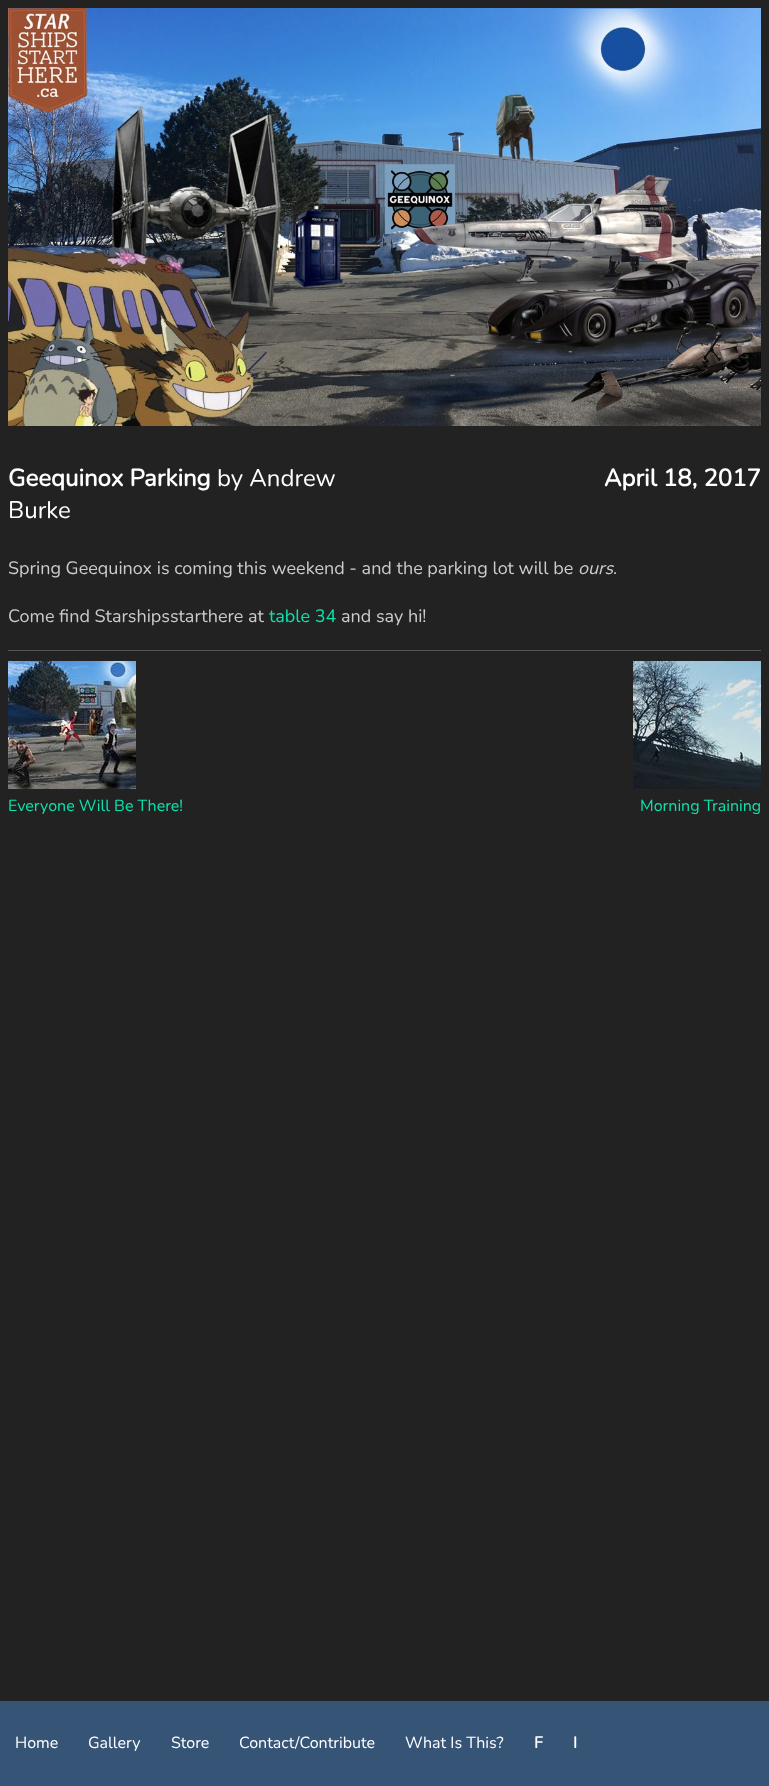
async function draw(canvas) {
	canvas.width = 769;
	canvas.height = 1786;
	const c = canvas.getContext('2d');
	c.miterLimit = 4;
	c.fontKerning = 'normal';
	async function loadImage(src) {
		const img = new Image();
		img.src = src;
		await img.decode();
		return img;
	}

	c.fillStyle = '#222';
	c.fillRect(0, 0, 769, 1786);
	c.drawImage(await loadImage('img1.png'), 8, 8, 753, 418);
	c.font = 'bold 24px Nunito';
	c.fillStyle = '#fff';
	c.fillText('Geequinox Parking', 8, 486);
	c.font = '200 24px Nunito';
	c.fillText('by Andrew', 217, 486);
	c.fillText('Burke', 8, 518);
	c.font = 'bold 24px Nunito';
	c.fillText('April 18, 2017', 604, 486);
	c.font = '200 18px Nunito';
	c.fillStyle = '#ccc';
	c.fillText('Spring Geequinox is coming this weekend - and the parking lot will be', 8, 574);
	c.font = 'italic 200 18px Nunito';
	c.fillText('ours', 578, 574);
	c.font = '200 18px Nunito';
	c.fillText('.', 613, 574);
	c.fillText('Come find Starshipsstarthere at', 8, 622);
	c.fillStyle = '#0ce3ac';
	c.fillText('table 34', 269, 622);
	c.fillStyle = '#ccc';
	c.fillText('and say hi!', 341, 622);
	c.fillStyle = '#555';
	c.fillRect(8, 650, 753, 1);
	c.drawImage(await loadImage('img2.png'), 8, 661, 128, 128);
	c.font = '200 16px Nunito';
	c.fillStyle = '#0ce3ac';
	c.fillText('Everyone Will Be There!', 8, 811);
	c.drawImage(await loadImage('img3.png'), 633, 661, 128, 128);
	c.fillText('Morning Training', 640, 811);
	c.fillStyle = '#355476';
	c.fillRect(0, 1701, 769, 85);
	c.fillStyle = '#fff';
	for (const [text, x, y] of [
		['Home', 15, 1748],
		['Gallery', 88, 1748],
		['Store', 171, 1748],
		['Contact/Contribute', 239, 1748],
		['What Is This?', 405, 1748],
	]) {
		c.fillText(text, x, y);
	}
	c.font = 'bold 16px Nunito';
	c.fillText('F', 534, 1748);
	c.fillText('I', 573, 1748);
}

draw(document.querySelector('canvas'));
